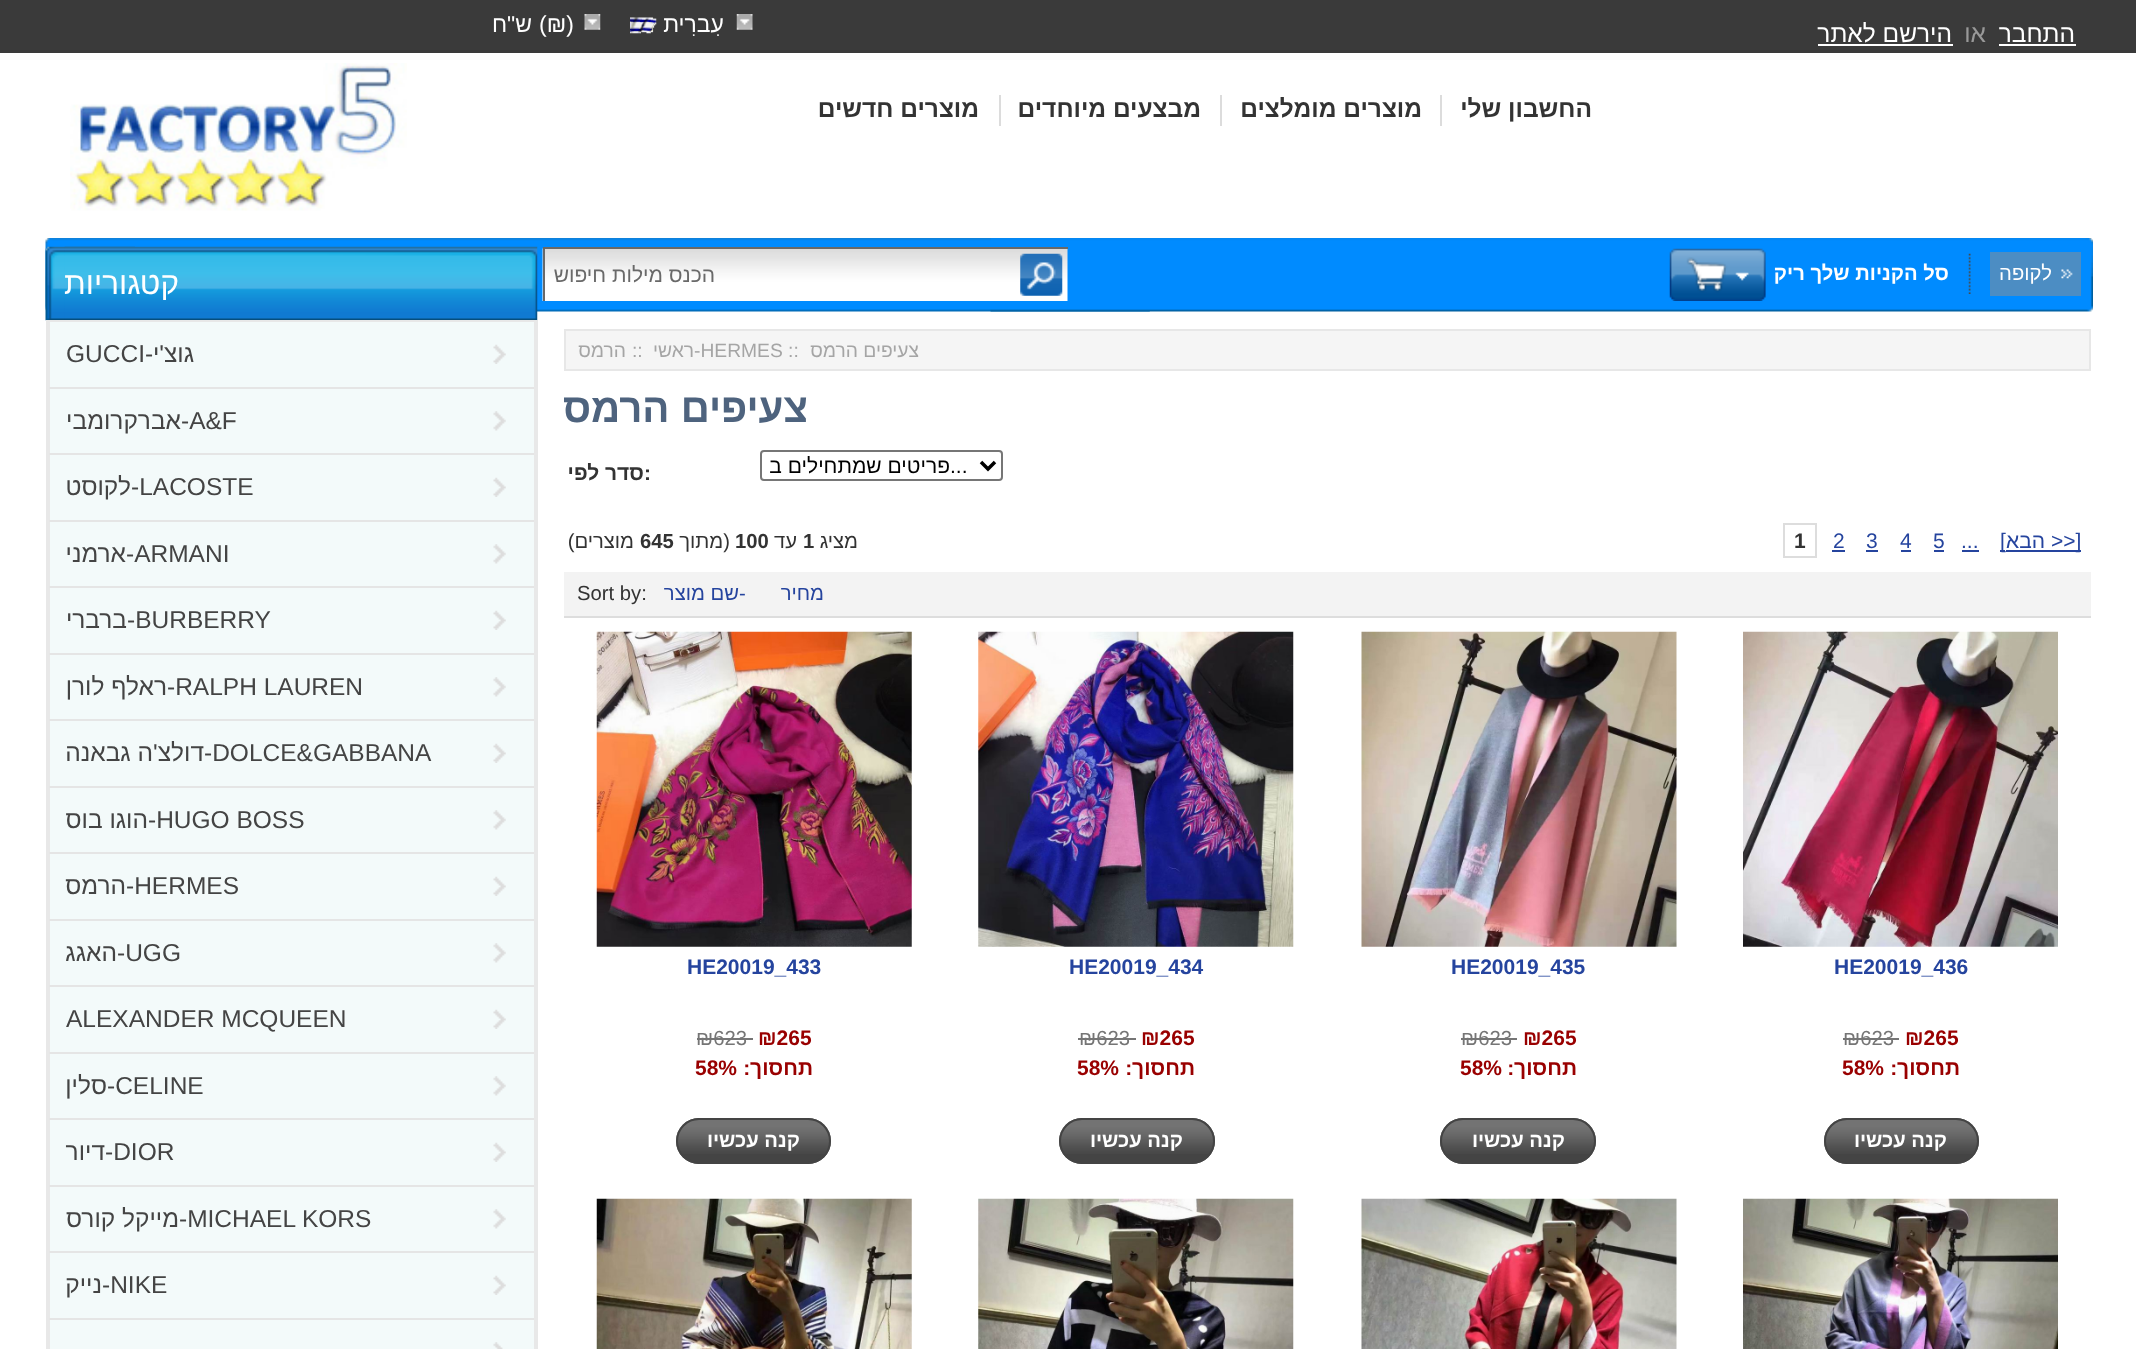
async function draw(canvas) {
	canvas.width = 2136;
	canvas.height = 1349;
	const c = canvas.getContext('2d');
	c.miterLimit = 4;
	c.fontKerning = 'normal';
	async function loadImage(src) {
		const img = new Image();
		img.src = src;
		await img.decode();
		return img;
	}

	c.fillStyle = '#fff';
	c.fillRect(0, 0, 2136, 1349);
	c.fillStyle = '#3a3a3a';
	c.fillRect(0, 0, 2136, 53);
	c.direction = 'rtl';
	c.font = '24.5px Liberation Sans';
	c.fillStyle = '#fff';
	c.fillText('התחבר', 2075, 42);
	c.fillRect(1999, 44, 77, 2);
	c.fillStyle = '#999';
	c.fillText('או', 1986, 42);
	c.fillStyle = '#fff';
	c.fillText('הירשם לאתר', 1952, 42);
	c.fillRect(1818, 44, 135, 2);
	c.drawImage(await loadImage('img1.png'), 736, 14, 17, 16);
	c.font = '23px Liberation Sans';
	c.fillText('עִברִית', 724, 32);
	c.drawImage(await loadImage('img2.png'), 630, 17, 27, 17);
	c.drawImage(await loadImage('img3.png'), 584, 14, 17, 16);
	c.direction = 'ltr';
	c.fillText('(₪)', 539, 32);
	c.direction = 'rtl';
	c.fillText('ש"ח', 532, 32);
	c.fillStyle = '#dcdcdc';
	c.fillRect(1440, 95, 2, 31);
	c.font = 'bold 24.5px Liberation Sans';
	c.fillStyle = '#333';
	c.fillText('החשבון שלי', 1592, 117);
	c.fillStyle = '#dcdcdc';
	c.fillRect(1220, 95, 2, 31);
	c.fillStyle = '#333';
	c.fillText('מוצרים מומלצים', 1422, 117);
	c.fillStyle = '#dcdcdc';
	c.fillRect(999, 95, 2, 31);
	c.fillStyle = '#333';
	c.fillText('מבצעים מיוחדים', 1201, 117);
	c.fillText('מוצרים חדשים', 979, 117);
	c.drawImage(await loadImage('img4.png'), 70, 63, 337, 148);
	c.drawImage(await loadImage('img5.png'), 45, 238, 1105, 74);
	c.drawImage(await loadImage('img6.png'), 990, 238, 1103, 74);
	c.fillStyle = '#4c8dc3';
	c.fillRect(1990, 252, 91, 44);
	c.drawImage(await loadImage('img7.png'), 2061, 269, 12, 10);
	c.font = '20.25px Liberation Sans';
	c.fillStyle = '#fff';
	c.fillText('לקופה', 2052, 280);
	c.drawImage(await loadImage('img8.png'), 1968, 253, 3, 41);
	c.font = 'bold 20.25px Liberation Sans';
	c.fillText('סל הקניות שלך ריק', 1949, 280);
	c.drawImage(await loadImage('img9.png'), 1669, 248, 97, 53);
	c.drawImage(await loadImage('img10.png'), 542, 248, 526, 53);
	c.fillStyle = '#696969';
	c.fillRect(543, 247, 525, 2);
	c.fillRect(543, 247, 2, 54);
	c.drawImage(await loadImage('img11.png'), 1020, 253, 43, 43);
	c.font = '21px Liberation Sans';
	c.fillText('הכנס מילות חיפוש', 715, 282);
	c.fillStyle = '#f5f5f5';
	c.beginPath();
	c.rect(565, 330, 1525, 40);
	c.fill();
	c.strokeStyle = '#e7e7e7';
	c.lineWidth = 2;
	c.stroke();
	c.font = '19.25px Liberation Sans';
	c.fillStyle = '#a5a5a5';
	c.fillText('צעיפים הרמס', 919, 357);
	c.direction = 'ltr';
	c.fillText('-HERMES ::', 694, 357);
	c.direction = 'rtl';
	c.fillText('ראשי', 694, 357);
	c.direction = 'ltr';
	c.fillText('::', 632, 357);
	c.direction = 'rtl';
	c.fillText('הרמס', 626, 357);
	c.font = 'bold 40.25px Liberation Sans';
	c.fillStyle = '#4e637e';
	c.fillText('צעיפים הרמס', 808, 422);
	c.beginPath();
	c.roundRect(761, 451, 241, 29, 3);
	c.strokeStyle = '#767676';
	c.stroke();
	c.beginPath();
	c.moveTo(981, 462);
	c.lineTo(988, 469);
	c.lineTo(995, 462);
	c.strokeStyle = '#000';
	c.lineWidth = 3.5;
	c.stroke();
	c.direction = 'ltr';
	c.font = '21px Liberation Sans';
	c.fillStyle = '#000';
	c.fillText('...', 950, 473);
	c.direction = 'rtl';
	c.fillText('פריטים שמתחילים ב', 950, 473);
	c.direction = 'ltr';
	c.font = 'bold 21px Liberation Sans';
	c.fillStyle = '#333';
	c.fillText(':', 644, 480);
	c.direction = 'rtl';
	c.fillText('סדר לפי', 644, 480);
	c.fillStyle = '#25449e';
	c.fillRect(2006, 550, 75, 2);
	c.direction = 'ltr';
	c.font = '21px Liberation Sans';
	c.fillText('>>]', 2051, 548);
	c.direction = 'rtl';
	c.fillText('הבא', 2045, 548);
	c.fillRect(2000, 550, 5, 2);
	c.direction = 'ltr';
	c.fillText('[', 2000, 548);
	c.fillText('...', 1961, 548);
	c.fillRect(1962, 550, 17, 2);
	c.fillText('5', 1933, 548);
	c.fillRect(1934, 550, 10, 2);
	c.fillText('4', 1900, 548);
	c.fillRect(1901, 550, 10, 2);
	c.fillText('3', 1866, 548);
	c.fillRect(1866, 550, 12, 2);
	c.fillText('2', 1833, 548);
	c.fillRect(1832, 550, 13, 2);
	c.strokeStyle = '#ddd';
	c.lineWidth = 2;
	c.strokeRect(1784, 524, 32, 33);
	c.font = 'bold 21px Liberation Sans';
	c.fillStyle = '#333';
	c.fillText('1', 1794, 548);
	c.direction = 'rtl';
	c.font = '20.25px Liberation Sans';
	c.fillText('מציג', 858, 548);
	c.direction = 'ltr';
	c.font = 'bold 20.25px Liberation Sans';
	c.fillText('1', 803, 548);
	c.direction = 'rtl';
	c.font = '20.25px Liberation Sans';
	c.fillText('עד', 797, 548);
	c.direction = 'ltr';
	c.font = 'bold 20.25px Liberation Sans';
	c.fillText('100', 735, 548);
	c.direction = 'rtl';
	c.font = '20.25px Liberation Sans';
	c.fillText('(מתוך', 730, 548);
	c.direction = 'ltr';
	c.font = 'bold 20.25px Liberation Sans';
	c.fillText('645', 640, 548);
	c.direction = 'rtl';
	c.font = '20.25px Liberation Sans';
	c.fillText('מוצרים)', 634, 548);
	c.fillStyle = '#f3f3f3';
	c.fillRect(564, 572, 1527, 44);
	c.fillStyle = '#ddd';
	c.fillRect(564, 616, 1527, 2);
	c.fillStyle = '#25449e';
	c.fillText('מחיר', 824, 600);
	c.direction = 'ltr';
	c.fillText('-', 739, 600);
	c.direction = 'rtl';
	c.fillText('שם מוצר', 739, 600);
	c.direction = 'ltr';
	c.fillStyle = '#333';
	c.fillText('Sort by:', 577, 600);
	c.drawImage(await loadImage('img12.png'), 1743, 631, 315, 316);
	c.font = 'bold 21px Liberation Sans';
	c.fillStyle = '#25449e';
	c.fillText('HE20019_436', 1834, 974);
	c.fillStyle = '#900';
	c.fillText('₪265', 1905, 1045);
	c.font = '20.25px Liberation Sans';
	c.fillStyle = '#757575';
	c.fillText('₪623', 1843, 1045);
	c.fillRect(1843, 1038, 56, 2);
	c.direction = 'rtl';
	c.font = 'bold 21px Liberation Sans';
	c.fillStyle = '#900';
	c.fillText('תחסוך:', 1960, 1075);
	c.direction = 'ltr';
	c.fillText('58%', 1842, 1075);
	c.fillStyle = '#444';
	c.beginPath();
	c.roundRect(1824, 1118, 155, 46, 23);
	c.fill();
	c.drawImage(await loadImage('img13.png'), 1824, 1120, 155, 34);
	c.beginPath();
	c.roundRect(1825, 1119, 153, 44, 22);
	c.strokeStyle = '#444';
	c.stroke();
	c.direction = 'rtl';
	c.font = 'bold 20.25px Liberation Sans';
	c.fillStyle = '#fff';
	c.fillText('קנה עכשיו', 1947, 1147);
	c.drawImage(await loadImage('img14.png'), 1361, 631, 316, 316);
	c.direction = 'ltr';
	c.font = 'bold 21px Liberation Sans';
	c.fillStyle = '#25449e';
	c.fillText('HE20019_435', 1451, 974);
	c.fillStyle = '#900';
	c.fillText('₪265', 1523, 1045);
	c.font = '20.25px Liberation Sans';
	c.fillStyle = '#757575';
	c.fillText('₪623', 1461, 1045);
	c.fillRect(1461, 1038, 56, 2);
	c.direction = 'rtl';
	c.font = 'bold 21px Liberation Sans';
	c.fillStyle = '#900';
	c.fillText('תחסוך:', 1577, 1075);
	c.direction = 'ltr';
	c.fillText('58%', 1460, 1075);
	c.fillStyle = '#444';
	c.beginPath();
	c.roundRect(1440, 1118, 156, 46, 23);
	c.fill();
	c.drawImage(await loadImage('img15.png'), 1440, 1120, 156, 34);
	c.beginPath();
	c.roundRect(1441, 1119, 154, 44, 22);
	c.stroke();
	c.direction = 'rtl';
	c.font = 'bold 20.25px Liberation Sans';
	c.fillStyle = '#fff';
	c.fillText('קנה עכשיו', 1565, 1147);
	c.drawImage(await loadImage('img16.png'), 978, 631, 316, 316);
	c.direction = 'ltr';
	c.font = 'bold 21px Liberation Sans';
	c.fillStyle = '#25449e';
	c.fillText('HE20019_434', 1069, 974);
	c.fillStyle = '#900';
	c.fillText('₪265', 1141, 1045);
	c.font = '20.25px Liberation Sans';
	c.fillStyle = '#757575';
	c.fillText('₪623', 1079, 1045);
	c.fillRect(1078, 1038, 58, 2);
	c.direction = 'rtl';
	c.font = 'bold 21px Liberation Sans';
	c.fillStyle = '#900';
	c.fillText('תחסוך:', 1195, 1075);
	c.direction = 'ltr';
	c.fillText('58%', 1077, 1075);
	c.fillStyle = '#444';
	c.beginPath();
	c.roundRect(1059, 1118, 156, 46, 23);
	c.fill();
	c.drawImage(await loadImage('img17.png'), 1059, 1120, 156, 34);
	c.beginPath();
	c.roundRect(1060, 1119, 154, 44, 22);
	c.stroke();
	c.direction = 'rtl';
	c.font = 'bold 20.25px Liberation Sans';
	c.fillStyle = '#fff';
	c.fillText('קנה עכשיו', 1183, 1147);
	c.drawImage(await loadImage('img18.png'), 596, 631, 316, 316);
	c.direction = 'ltr';
	c.font = 'bold 21px Liberation Sans';
	c.fillStyle = '#25449e';
	c.fillText('HE20019_433', 687, 974);
	c.fillStyle = '#900';
	c.fillText('₪265', 758, 1045);
	c.font = '20.25px Liberation Sans';
	c.fillStyle = '#757575';
	c.fillText('₪623', 696, 1045);
	c.fillRect(697, 1038, 56, 2);
	c.direction = 'rtl';
	c.font = 'bold 21px Liberation Sans';
	c.fillStyle = '#900';
	c.fillText('תחסוך:', 813, 1075);
	c.direction = 'ltr';
	c.fillText('58%', 695, 1075);
	c.fillStyle = '#444';
	c.beginPath();
	c.roundRect(676, 1118, 155, 46, 23);
	c.fill();
	c.drawImage(await loadImage('img19.png'), 676, 1120, 155, 34);
	c.beginPath();
	c.roundRect(677, 1119, 153, 44, 22);
	c.stroke();
	c.direction = 'rtl';
	c.font = 'bold 20.25px Liberation Sans';
	c.fillStyle = '#fff';
	c.fillText('קנה עכשיו', 800, 1147);
	c.drawImage(await loadImage('img20.png'), 1743, 1198, 315, 151);
	c.drawImage(await loadImage('img21.png'), 1361, 1198, 316, 151);
	c.drawImage(await loadImage('img22.png'), 978, 1198, 316, 151);
	c.drawImage(await loadImage('img23.png'), 596, 1198, 316, 151);
	c.drawImage(await loadImage('img24.png'), 45, 246, 90, 75);
	c.drawImage(await loadImage('img25.png'), 64, 246, 474, 74);
	c.font = '31.5px Liberation Sans';
	c.fillText('קטגוריות', 179, 294);
	for (const [x, y, w, h, color] of [
		[50, 322, 484, 1027, '#f3fafa'],
		[46, 320, 491, 2, '#e8e8e8'],
		[534, 320, 4, 1029, '#e8e8e8'],
		[46, 320, 4, 1029, '#e8e8e8'],
	]) {
		c.fillStyle = color;
		c.fillRect(x, y, w, h);
	}
	c.drawImage(await loadImage('img26.png'), 493, 344, 13, 20);
	c.font = '24.5px Liberation Sans';
	c.fillStyle = '#444';
	c.fillText('גוצ\'י', 194, 362);
	c.direction = 'ltr';
	c.fillText('GUCCI-', 66, 362);
	c.fillStyle = '#e5e5e5';
	c.fillRect(49, 387, 485, 2);
	c.drawImage(await loadImage('img27.png'), 493, 411, 13, 20);
	c.fillStyle = '#444';
	c.fillText('-A&F', 181, 429);
	c.direction = 'rtl';
	c.fillText('אברקרומבי', 181, 429);
	c.fillStyle = '#e5e5e5';
	c.fillRect(49, 453, 485, 2);
	c.drawImage(await loadImage('img26.png'), 493, 477, 13, 20);
	c.direction = 'ltr';
	c.fillStyle = '#444';
	c.fillText('-LACOSTE', 131, 495);
	c.direction = 'rtl';
	c.fillText('לקוסט', 131, 495);
	c.fillStyle = '#e5e5e5';
	c.fillRect(49, 520, 485, 2);
	c.drawImage(await loadImage('img27.png'), 493, 544, 13, 20);
	c.direction = 'ltr';
	c.fillStyle = '#444';
	c.fillText('-ARMANI', 126, 562);
	c.direction = 'rtl';
	c.fillText('ארמני', 126, 562);
	c.fillStyle = '#e5e5e5';
	c.fillRect(49, 586, 485, 2);
	c.drawImage(await loadImage('img26.png'), 493, 610, 13, 20);
	c.direction = 'ltr';
	c.fillStyle = '#444';
	c.fillText('-BURBERRY', 127, 628);
	c.direction = 'rtl';
	c.fillText('ברברי', 127, 628);
	c.fillStyle = '#e5e5e5';
	c.fillRect(49, 653, 485, 2);
	c.drawImage(await loadImage('img27.png'), 493, 677, 13, 20);
	c.direction = 'ltr';
	c.fillStyle = '#444';
	c.fillText('-RALPH LAUREN', 167, 695);
	c.direction = 'rtl';
	c.fillText('ראלף לורן', 167, 695);
	c.fillStyle = '#e5e5e5';
	c.fillRect(49, 719, 485, 2);
	c.drawImage(await loadImage('img26.png'), 493, 743, 13, 20);
	c.direction = 'ltr';
	c.fillStyle = '#444';
	c.fillText('-DOLCE&GABBANA', 204, 761);
	c.direction = 'rtl';
	c.fillText('דולצ\'ה גבאנה', 204, 761);
	c.fillStyle = '#e5e5e5';
	c.fillRect(49, 786, 485, 2);
	c.drawImage(await loadImage('img27.png'), 493, 810, 13, 20);
	c.direction = 'ltr';
	c.fillStyle = '#444';
	c.fillText('-HUGO BOSS', 148, 828);
	c.direction = 'rtl';
	c.fillText('הוגו בוס', 148, 828);
	c.fillStyle = '#e5e5e5';
	c.fillRect(49, 852, 485, 2);
	c.drawImage(await loadImage('img26.png'), 493, 876, 13, 20);
	c.direction = 'ltr';
	c.fillStyle = '#444';
	c.fillText('-HERMES', 126, 894);
	c.direction = 'rtl';
	c.fillText('הרמס', 126, 894);
	c.fillStyle = '#e5e5e5';
	c.fillRect(49, 919, 485, 2);
	c.drawImage(await loadImage('img27.png'), 493, 943, 13, 20);
	c.direction = 'ltr';
	c.fillStyle = '#444';
	c.fillText('-UGG', 117, 961);
	c.direction = 'rtl';
	c.fillText('האגג', 117, 961);
	c.fillStyle = '#e5e5e5';
	c.fillRect(49, 985, 485, 2);
	c.drawImage(await loadImage('img26.png'), 493, 1009, 13, 20);
	c.direction = 'ltr';
	c.fillStyle = '#444';
	c.fillText('ALEXANDER MCQUEEN', 66, 1027);
	c.fillStyle = '#e5e5e5';
	c.fillRect(49, 1052, 485, 2);
	c.drawImage(await loadImage('img27.png'), 493, 1076, 13, 20);
	c.fillStyle = '#444';
	c.fillText('-CELINE', 107, 1094);
	c.direction = 'rtl';
	c.fillText('סלין', 107, 1094);
	c.fillStyle = '#e5e5e5';
	c.fillRect(49, 1118, 485, 2);
	c.drawImage(await loadImage('img26.png'), 493, 1142, 13, 20);
	c.direction = 'ltr';
	c.fillStyle = '#444';
	c.fillText('-DIOR', 105, 1160);
	c.direction = 'rtl';
	c.fillText('דיור', 105, 1160);
	c.fillStyle = '#e5e5e5';
	c.fillRect(49, 1185, 485, 2);
	c.drawImage(await loadImage('img27.png'), 493, 1209, 13, 20);
	c.direction = 'ltr';
	c.fillStyle = '#444';
	c.fillText('-MICHAEL KORS', 179, 1227);
	c.direction = 'rtl';
	c.fillText('מייקל קורס', 179, 1227);
	c.fillStyle = '#e5e5e5';
	c.fillRect(49, 1251, 485, 2);
	c.drawImage(await loadImage('img26.png'), 493, 1275, 13, 20);
	c.direction = 'ltr';
	c.fillStyle = '#444';
	c.fillText('-NIKE', 102, 1293);
	c.direction = 'rtl';
	c.fillText('נייק', 102, 1293);
	c.fillStyle = '#e5e5e5';
	c.fillRect(49, 1318, 485, 2);
	c.drawImage(await loadImage('img28.png'), 493, 1342, 10, 7);
}

draw(document.querySelector('canvas'));
